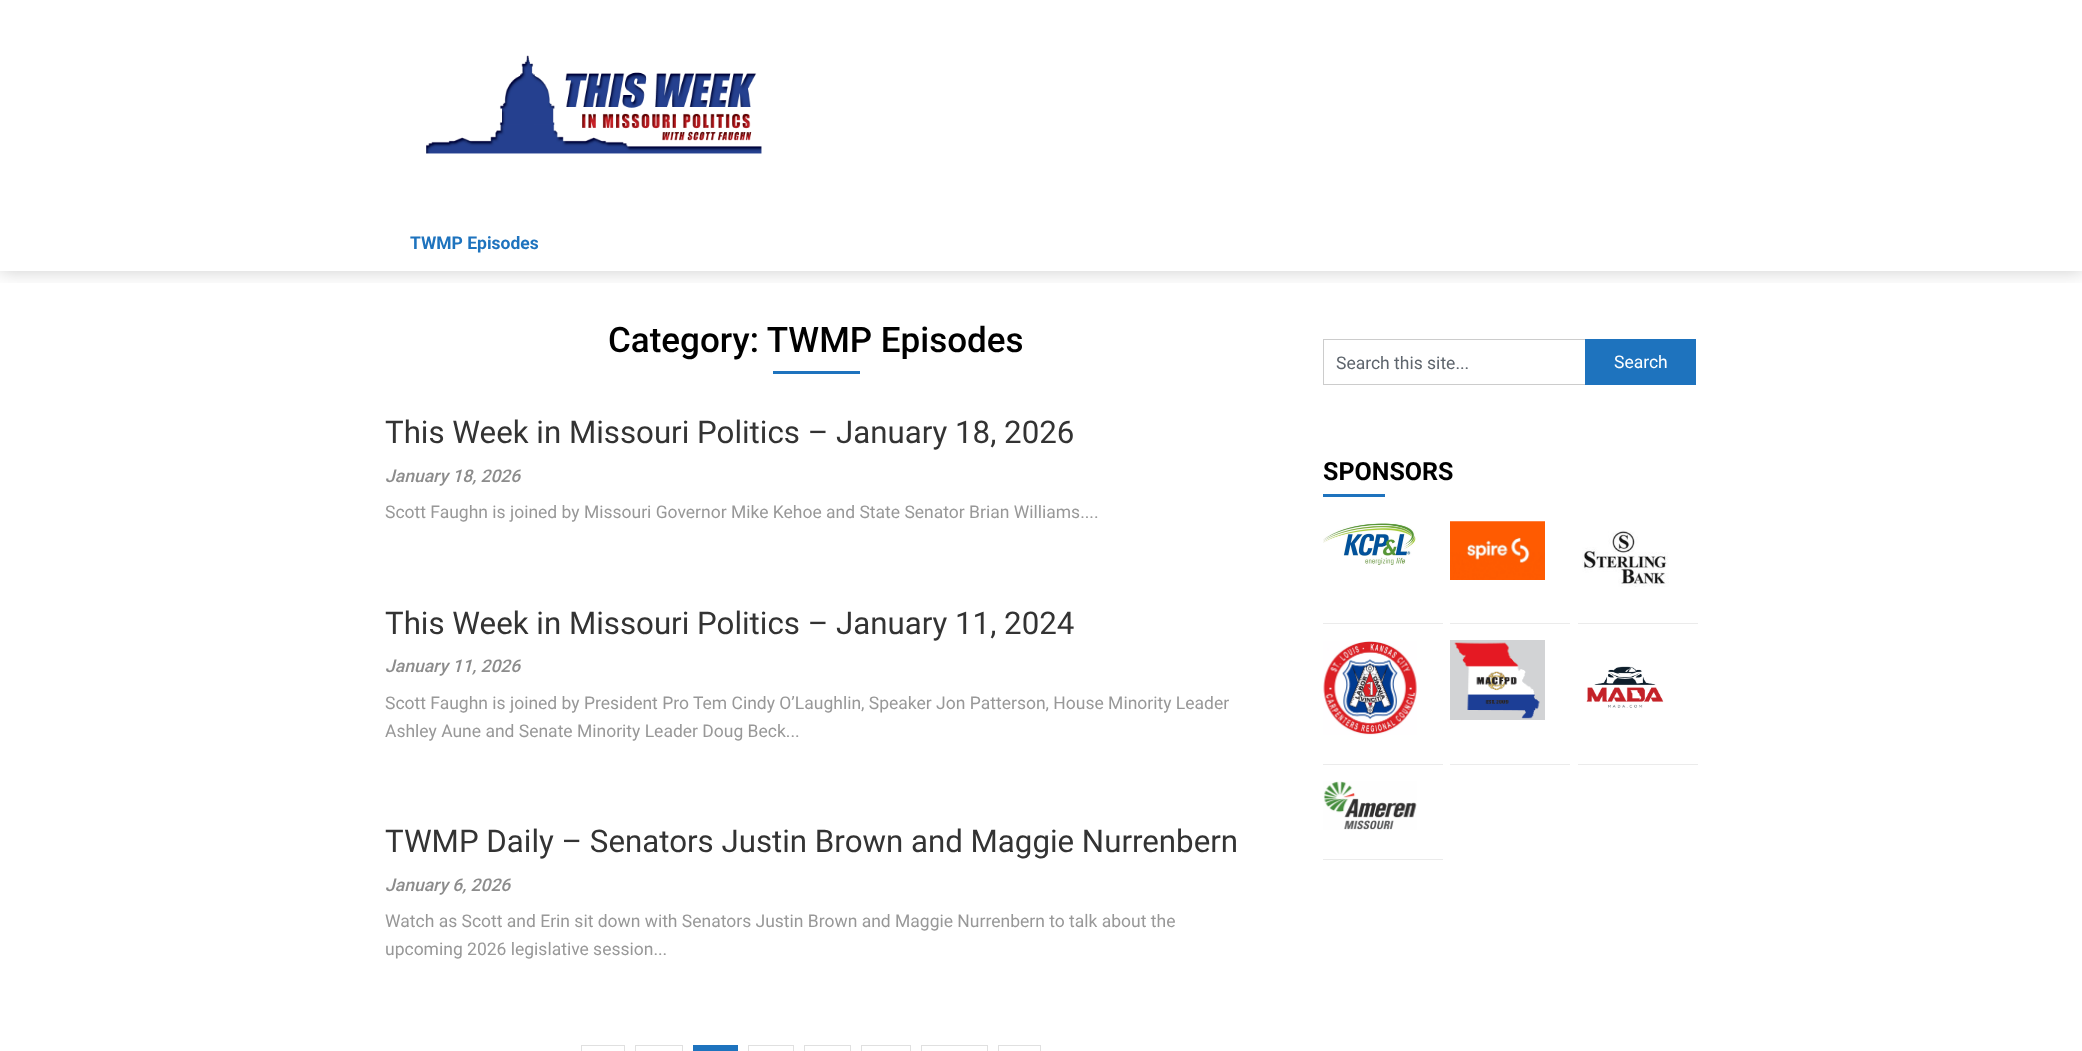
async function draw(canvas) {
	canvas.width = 2082;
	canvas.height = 1051;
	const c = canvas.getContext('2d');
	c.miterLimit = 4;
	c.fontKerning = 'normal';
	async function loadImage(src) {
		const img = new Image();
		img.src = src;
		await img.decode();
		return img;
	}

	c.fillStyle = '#fff';
	c.fillRect(0, 0, 2082, 1051);
	c.save();
	c.beginPath();
	c.rect(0, 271, 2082, 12);
	c.clip();
	c.fillStyle = '#00000033';
	c.filter = 'blur(9.5px)';
	c.beginPath();
	c.rect(0, 0, 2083, 271);
	c.fill();
	c.filter = 'none';
	c.restore();
	c.drawImage(await loadImage('img1.png'), 426, 55, 336, 99);
	c.font = 'bold 17.5px Roboto';
	c.fillStyle = '#1e73be';
	c.fillText('TWMP Episodes', 410, 249);
	c.font = '500 35px Roboto';
	c.fillStyle = '#000';
	c.fillText('Category: TWMP Episodes', 608, 352);
	c.fillStyle = '#1e73be';
	c.fillRect(773, 371, 87, 3);
	c.font = '31.25px Roboto';
	c.fillStyle = '#333';
	c.fillText('This Week in Missouri Politics – January 18, 2026', 385, 443);
	c.font = 'italic 500 17.5px Roboto';
	c.fillStyle = '#8c8c8c';
	c.fillText('January 18, 2026', 385, 482);
	c.font = '17.5px Roboto';
	c.fillStyle = '#989898';
	c.fillText('Scott Faughn is joined by Missouri Governor Mike Kehoe and State Senator Brian Williams....', 385, 518);
	c.font = '31.25px Roboto';
	c.fillStyle = '#333';
	c.fillText('This Week in Missouri Politics – January 11, 2024', 385, 634);
	c.font = 'italic 500 17.5px Roboto';
	c.fillStyle = '#8c8c8c';
	c.fillText('January 11, 2026', 385, 672);
	c.font = '17.5px Roboto';
	c.fillStyle = '#989898';
	c.fillText('Scott Faughn is joined by President Pro Tem Cindy O’Laughlin, Speaker Jon Patterson, House Minority Leader', 385, 709);
	c.fillText('Ashley Aune and Senate Minority Leader Doug Beck...', 385, 737);
	c.font = '31.25px Roboto';
	c.fillStyle = '#333';
	c.fillText('TWMP Daily – Senators Justin Brown and Maggie Nurrenbern', 385, 852);
	c.font = 'italic 500 17.5px Roboto';
	c.fillStyle = '#8c8c8c';
	c.fillText('January 6, 2026', 385, 891);
	c.font = '17.5px Roboto';
	c.fillStyle = '#989898';
	c.fillText('Watch as Scott and Erin sit down with Senators Justin Brown and Maggie Nurrenbern to talk about the', 385, 927);
	c.fillText('upcoming 2026 legislative session...', 385, 955);
	c.strokeStyle = '#e0e0e0';
	c.strokeRect(581.5, 1045.5, 43, 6);
	c.strokeRect(635.5, 1045.5, 47, 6);
	c.fillStyle = '#1e73be';
	c.fillRect(693, 1045, 45, 6);
	c.strokeRect(748.5, 1045.5, 45, 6);
	c.strokeRect(804.5, 1045.5, 46, 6);
	c.strokeRect(861.5, 1045.5, 49, 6);
	c.strokeRect(921.5, 1045.5, 66, 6);
	c.strokeRect(998.5, 1045.5, 42, 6);
	for (const [x, y, w, h, color] of [
		[1323, 339, 262, 1, '#ccc'],
		[1323, 384, 262, 1, '#ccc'],
		[1323, 339, 1, 46, '#ccc'],
	]) {
		c.fillStyle = color;
		c.fillRect(x, y, w, h);
	}
	c.fillStyle = '#5e656d';
	c.fillText('Search this site...', 1336, 369);
	c.fillStyle = '#1e73be';
	c.fillRect(1585, 339, 111, 46);
	c.fillStyle = '#fff';
	c.fillText('Search', 1614, 368);
	c.font = 'bold 25px Roboto';
	c.fillStyle = '#000';
	c.fillText('SPONSORS', 1323, 480);
	c.fillStyle = '#1e73be';
	c.fillRect(1323, 494, 62, 3);
	c.fillStyle = '#ebebeb';
	c.fillRect(1323, 623, 120, 1);
	c.drawImage(await loadImage('img2.png'), 1323, 523, 93, 42);
	c.fillRect(1450, 623, 120, 1);
	c.drawImage(await loadImage('img3.png'), 1450, 521, 95, 59);
	c.fillRect(1578, 623, 120, 1);
	c.drawImage(await loadImage('img4.png'), 1582, 530, 87, 57);
	c.fillRect(1323, 764, 120, 1);
	c.drawImage(await loadImage('img5.png'), 1323, 641, 94, 94);
	c.fillRect(1450, 764, 120, 1);
	c.drawImage(await loadImage('img6.png'), 1450, 640, 95, 80);
	c.fillRect(1578, 764, 120, 1);
	c.drawImage(await loadImage('img7.png'), 1586, 666, 78, 42);
	c.fillRect(1323, 859, 120, 1);
	c.drawImage(await loadImage('img8.png'), 1323, 781, 94, 49);
}

draw(document.querySelector('canvas'));
